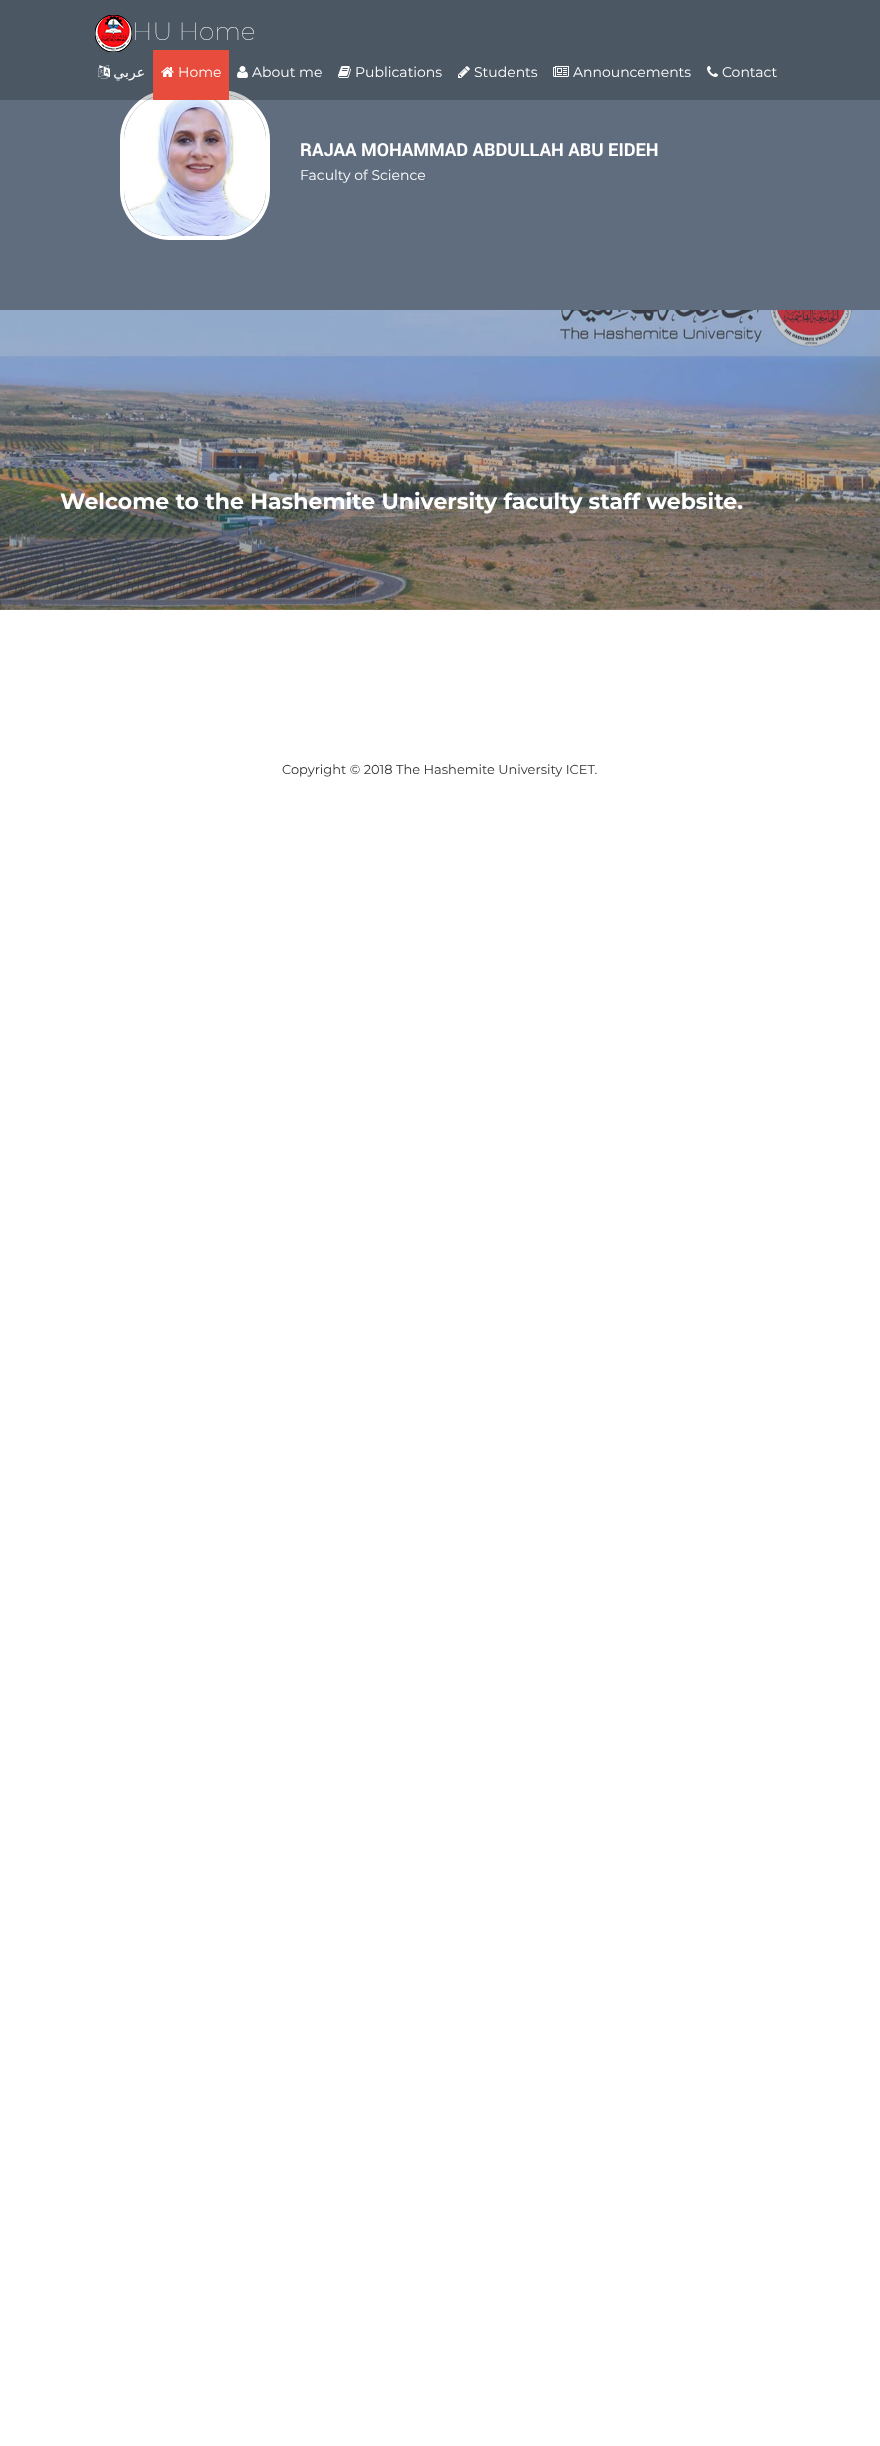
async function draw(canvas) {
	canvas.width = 880;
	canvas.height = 2446;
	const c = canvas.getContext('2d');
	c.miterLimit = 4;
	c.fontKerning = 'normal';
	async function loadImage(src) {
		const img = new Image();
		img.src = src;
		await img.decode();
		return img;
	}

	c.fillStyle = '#fff';
	c.fillRect(0, 0, 880, 2446);
	c.fillStyle = '#5f6d7e';
	c.fillRect(0, 0, 880, 310);
	c.beginPath();
	c.roundRect(122, 92, 146, 146, 48);
	c.strokeStyle = '#fff';
	c.lineWidth = 4;
	c.stroke();
	c.drawImage(await loadImage('img9.png'), 124, 95, 142, 141);
	c.fillStyle = '#00000033';
	c.fillRect(0, 0, 880, 100);
	c.drawImage(await loadImage('img1.png'), 95, 15, 37, 37);
	c.font = '100 25px Montserrat';
	c.fillStyle = '#fff';
	c.fillText('HU Home', 132, 40);
	c.drawImage(await loadImage('img2.png'), 98, 65, 12, 14);
	c.direction = 'rtl';
	c.font = '14px DejaVu Sans';
	c.fillText('عربي', 145, 77);
	c.fillStyle = '#e74c3c';
	c.fillRect(153, 50, 76, 50);
	c.drawImage(await loadImage('img3.png'), 161, 67, 13, 10);
	c.direction = 'ltr';
	c.font = '14px Montserrat';
	c.fillStyle = '#fff';
	c.fillText('Home', 178, 77);
	c.drawImage(await loadImage('img4.png'), 237, 66, 11, 12);
	c.fillText('About me', 252, 77);
	c.drawImage(await loadImage('img5.png'), 338, 66, 13, 12);
	c.fillText('Publications', 355, 77);
	c.drawImage(await loadImage('img6.png'), 458, 66, 12, 12);
	c.fillText('Students', 474, 77);
	c.drawImage(await loadImage('img7.png'), 553, 66, 16, 11);
	c.fillText('Announcements', 573, 77);
	c.drawImage(await loadImage('img8.png'), 707, 66, 11, 11);
	c.fillText('Contact', 722, 77);
	c.font = 'bold 18px roboto';
	c.fillText('RAJAA MOHAMMAD ABDULLAH ABU EIDEH', 300, 156);
	c.font = '14px Montserrat';
	c.fillText('Faculty of Science', 300, 180);
	c.drawImage(await loadImage('img10.png'), 0, 310, 880, 300);
	c.font = 'bold 22px Montserrat';
	c.fillText('Welcome to the Hashemite University faculty staff website.', 60, 509);
	c.font = '13px Montserrat';
	c.fillStyle = '#333';
	c.fillText('Copyright © 2018 The Hashemite University ICET.', 282, 774);
}

draw(document.querySelector('canvas'));
